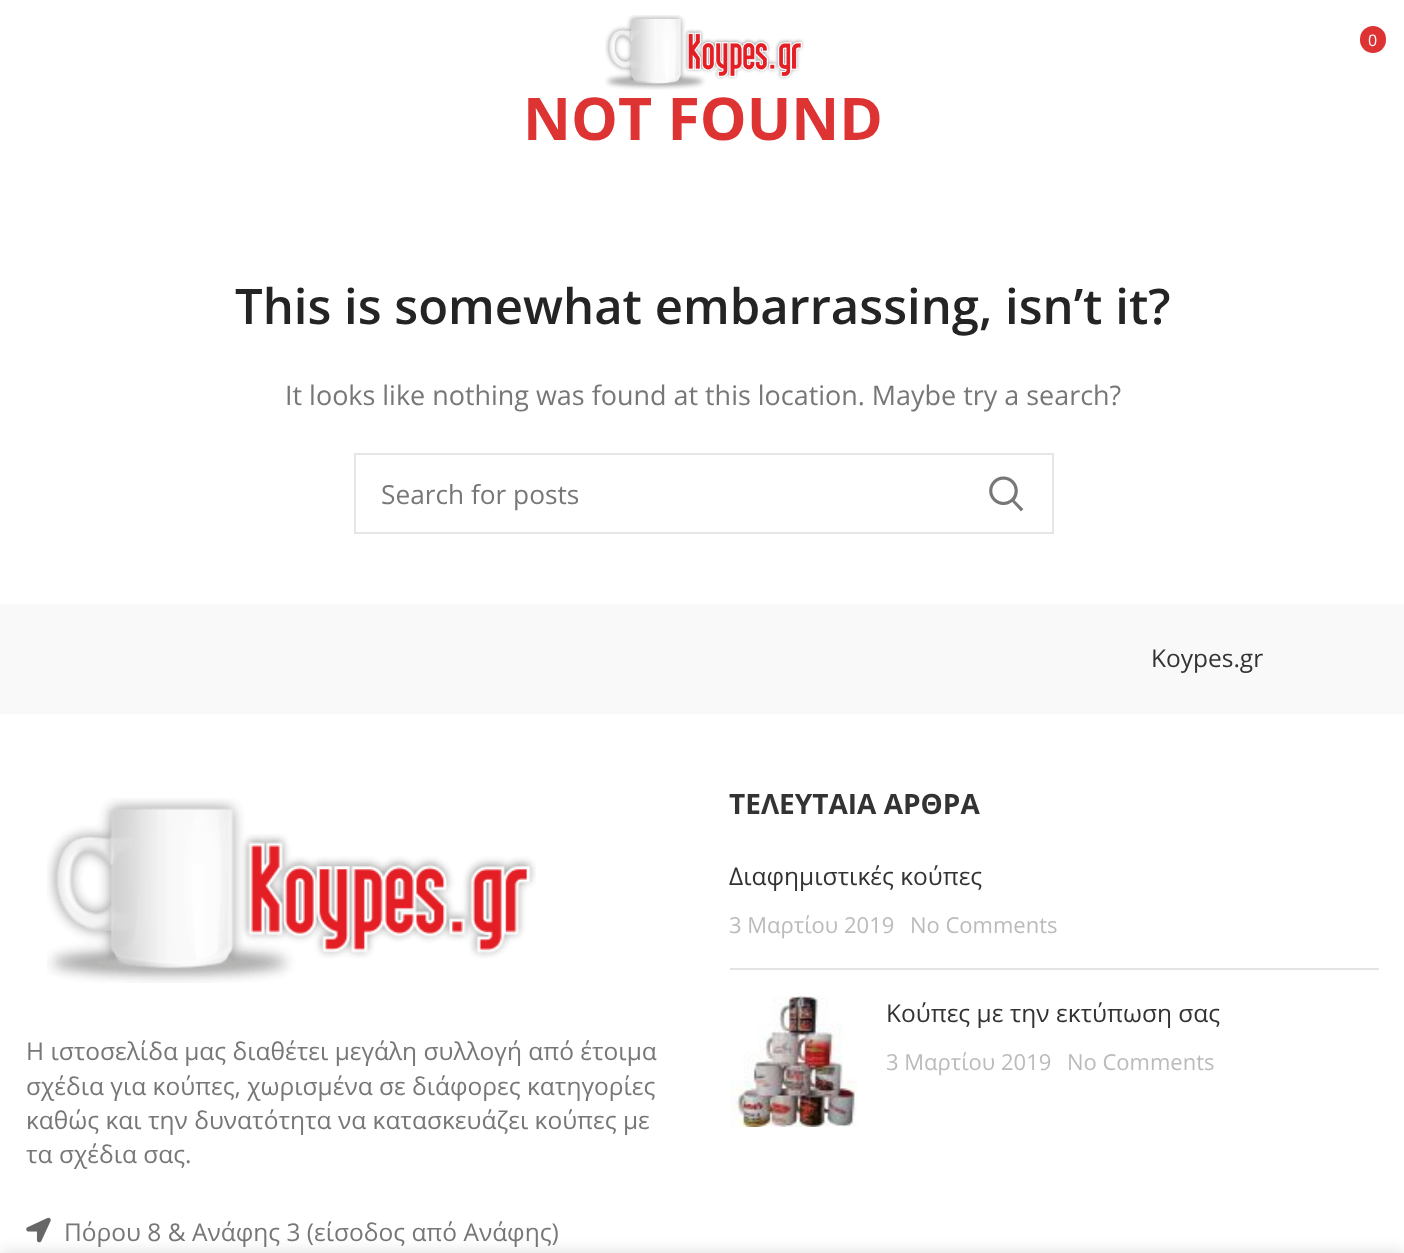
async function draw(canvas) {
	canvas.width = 1404;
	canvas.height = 1253;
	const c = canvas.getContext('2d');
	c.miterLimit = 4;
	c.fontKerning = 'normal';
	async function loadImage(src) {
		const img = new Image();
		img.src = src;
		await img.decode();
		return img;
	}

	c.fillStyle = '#fff';
	c.fillRect(0, 0, 1404, 1253);
	c.drawImage(await loadImage('img1.png'), 605, 15, 199, 75);
	c.fillStyle = '#d33';
	c.beginPath();
	c.roundRect(1360, 26, 26, 27, 13);
	c.fill();
	c.font = '16px Open Sans';
	c.fillStyle = '#fff';
	c.fillText('0', 1368, 46);
	c.font = 'bold 59px Open Sans';
	c.fillStyle = '#d33';
	c.fillText('NOT FOUND', 523, 140);
	c.font = '600 49px Open Sans';
	c.fillStyle = '#242424';
	c.fillText('This is somewhat embarrassing, isn’t it?', 235, 324);
	c.font = '26.95px Open Sans';
	c.fillStyle = '#777';
	c.fillText('It looks like nothing was found at this location. Maybe try a search?', 285, 405);
	c.strokeStyle = '#e6e6e6';
	c.lineWidth = 2;
	c.strokeRect(355, 454, 698, 79);
	c.font = '26.25px Open Sans';
	c.fillText('Search for posts', 381, 504);
	c.drawImage(await loadImage('img2.png'), 989, 476, 35, 36);
	c.fillStyle = '#f9f9f9';
	c.fillRect(0, 604, 1404, 110);
	c.font = '24.5px Open Sans';
	c.fillStyle = '#333';
	c.fillText('Koypes.gr', 1151, 667);
	c.font = 'bold 28px Open Sans';
	c.fillText('ΤΕΛΕΥΤΑΙΑ ΑΡΘΡΑ', 729, 814);
	c.fillStyle = '#e4e4e4';
	c.fillRect(730, 968, 649, 2);
	c.font = '24.5px Open Sans';
	c.fillStyle = '#333';
	c.fillText('Διαφημιστικές κούπες', 729, 885);
	c.font = '22px Open Sans';
	c.fillStyle = '#bbb';
	c.fillText('3 Μαρτίου 2019', 729, 933);
	c.fillText('No Comments', 910, 933);
	c.drawImage(await loadImage('img3.png'), 730, 996, 128, 131);
	c.font = '24.5px Open Sans';
	c.fillStyle = '#333';
	c.fillText('Κούπες με την εκτύπωση σας', 886, 1022);
	c.font = '22px Open Sans';
	c.fillStyle = '#bbb';
	c.fillText('3 Μαρτίου 2019', 886, 1070);
	c.fillText('No Comments', 1067, 1070);
	c.drawImage(await loadImage('img4.png'), 47, 798, 489, 185);
	c.font = '24.5px Open Sans';
	c.fillStyle = '#777';
	for (const [text, x, y] of [
		['Η ιστοσελίδα μας διαθέτει μεγάλη συλλογή από έτοιμα', 26, 1060],
		['σχέδια για κούπες, χωρισμένα σε διάφορες κατηγορίες', 26, 1095],
		['καθώς και την δυνατότητα να κατασκευάζει κούπες με', 26, 1129],
		['τα σχέδια σας.', 26, 1163],
	]) {
		c.fillText(text, x, y);
	}
	c.drawImage(await loadImage('img5.png'), 26, 1217, 25, 26);
	c.fillText('Πόρου 8 & Ανάφης 3 (είσοδος από Ανάφης)', 64, 1241);
	c.fillStyle = '#00000024';
	c.filter = 'blur(8px)';
	c.beginPath();
	c.rect(0, 1253, 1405, 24);
	c.fill();
	c.filter = 'none';
}

draw(document.querySelector('canvas'));
